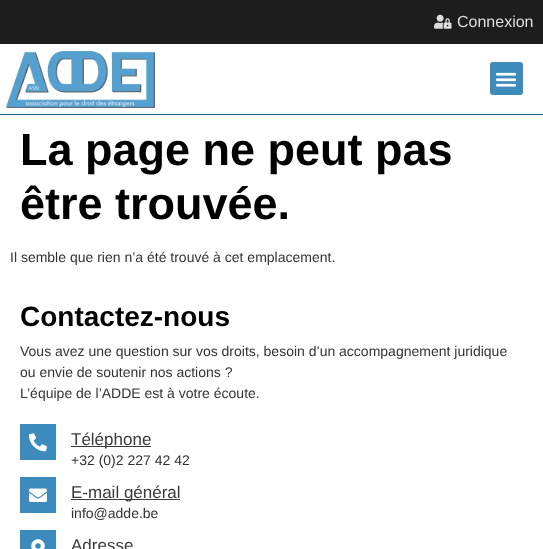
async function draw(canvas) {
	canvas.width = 543;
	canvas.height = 549;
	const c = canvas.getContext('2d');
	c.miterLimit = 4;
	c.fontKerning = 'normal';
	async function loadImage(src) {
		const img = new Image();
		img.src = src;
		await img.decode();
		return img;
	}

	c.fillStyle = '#fff';
	c.fillRect(0, 0, 543, 549);
	c.fillStyle = '#1d1d1d';
	c.fillRect(0, 0, 543, 44);
	c.drawImage(await loadImage('img1.png'), 434, 14, 18, 15);
	c.font = '16px Liberation Sans';
	c.fillStyle = '#dfdfdf';
	c.fillText('Connexion', 457, 27);
	c.fillStyle = '#296082';
	c.fillRect(0, 114, 543, 1);
	c.drawImage(await loadImage('img2.png'), 5, 51, 150, 57);
	c.fillStyle = '#3d8bbc';
	c.beginPath();
	c.roundRect(490, 62, 33, 33, 3);
	c.fill();
	c.drawImage(await loadImage('img3.png'), 495, 72, 22, 15);
	c.font = 'bold 45px Liberation Sans';
	c.fillStyle = '#000';
	c.fillText('La page ne peut pas', 20, 165);
	c.fillText('être trouvée.', 20, 219);
	c.font = '14px Liberation Sans';
	c.fillStyle = '#333';
	c.fillText('Il semble que rien n’a été trouvé à cet emplacement.', 10, 262);
	c.font = 'bold 28px Liberation Sans';
	c.fillStyle = '#000';
	c.fillText('Contactez-nous', 20, 326);
	c.font = '14px Liberation Sans';
	c.fillStyle = '#333';
	for (const [text, x, y] of [
		['Vous avez une question sur vos droits, besoin d’un accompagnement juridique', 20, 356],
		['ou envie de soutenir nos actions ?', 20, 377],
		['L’équipe de l’ADDE est à votre écoute.', 20, 398],
	]) {
		c.fillText(text, x, y);
	}
	c.fillStyle = '#3d8bbc';
	c.fillRect(20, 424, 36, 36);
	c.drawImage(await loadImage('img4.png'), 29, 433, 18, 19);
	c.fillStyle = '#3b3b3b';
	c.fillRect(71, 446, 80, 1);
	c.font = '17px Liberation Sans';
	c.fillText('Téléphone', 71, 445);
	c.font = '14px Liberation Sans';
	c.fillStyle = '#333';
	c.fillText('+32 (0)2 227 42 42', 71, 465);
	c.fillStyle = '#3d8bbc';
	c.fillRect(20, 477, 36, 36);
	c.drawImage(await loadImage('img5.png'), 29, 488, 18, 14);
	c.fillStyle = '#3b3b3b';
	c.fillRect(71, 499, 109, 1);
	c.font = '17px Liberation Sans';
	c.fillText('E-mail général', 71, 498);
	c.font = '14px Liberation Sans';
	c.fillStyle = '#333';
	c.fillText('info@adde.be', 71, 518);
	c.fillStyle = '#3d8bbc';
	c.fillRect(20, 530, 36, 19);
	c.drawImage(await loadImage('img6.png'), 31, 539, 14, 10);
	c.font = '17px Liberation Sans';
	c.fillStyle = '#3b3b3b';
	c.fillText('Adresse', 71, 551);
}

draw(document.querySelector('canvas'));
